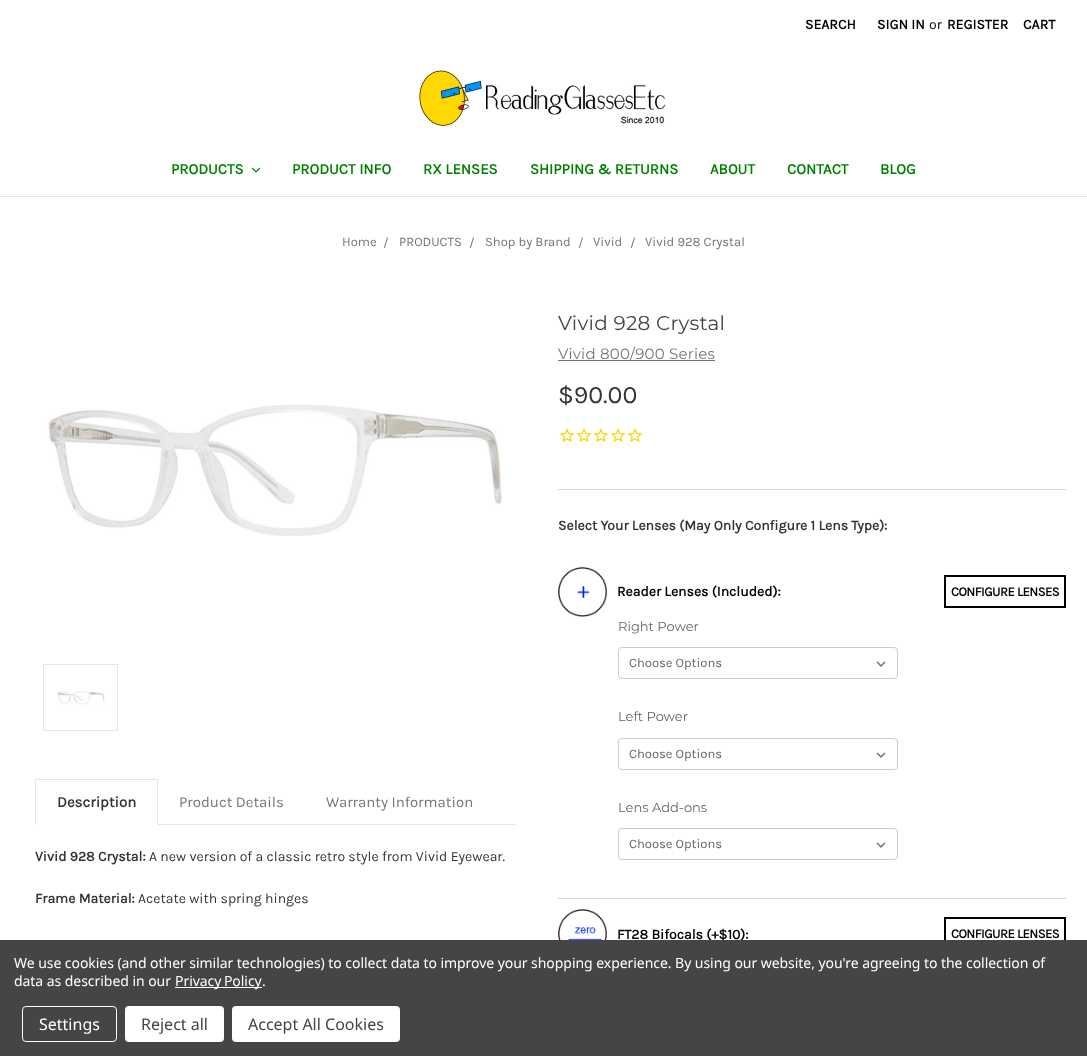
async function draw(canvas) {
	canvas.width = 1087;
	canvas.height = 1056;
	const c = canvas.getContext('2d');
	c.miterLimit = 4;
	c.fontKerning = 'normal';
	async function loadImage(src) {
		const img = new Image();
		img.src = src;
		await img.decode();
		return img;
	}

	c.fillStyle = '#fff';
	c.fillRect(0, 0, 1087, 1056);
	c.fillStyle = '#e5e5e5';
	c.fillRect(0, 196, 1087, 1);
	c.font = 'bold 14px Karla';
	c.fillStyle = '#000';
	c.fillText('SEARCH', 805, 29);
	c.fillText('SIGN IN', 877, 29);
	c.font = '14px Karla';
	c.fillText('or', 929, 29);
	c.font = 'bold 14px Karla';
	c.fillText('REGISTER', 947, 29);
	c.fillText('CART', 1023, 29);
	c.drawImage(await loadImage('img1.png'), 419, 70, 247, 56);
	c.font = 'bold 15px Karla';
	c.fillStyle = '#008000';
	c.fillText('PRODUCTS', 171, 174);
	c.drawImage(await loadImage('img2.png'), 252, 167, 8, 6);
	for (const [text, x, y] of [
		['PRODUCT INFO', 292, 174],
		['RX LENSES', 423, 174],
		['SHIPPING & RETURNS', 530, 174],
		['ABOUT', 710, 174],
		['CONTACT', 787, 174],
		['BLOG', 880, 174],
	]) {
		c.fillText(text, x, y);
	}
	c.font = '13px Karla';
	c.fillStyle = '#757575';
	for (const [text, x, y] of [
		['Home', 342, 246],
		['/', 383, 247],
		['PRODUCTS', 399, 246],
		['/', 469, 247],
		['Shop by Brand', 485, 246],
		['/', 578, 247],
		['Vivid', 593, 246],
		['/', 630, 247],
		['Vivid 928 Crystal', 645, 246],
	]) {
		c.fillText(text, x, y);
	}
	c.letterSpacing = '0.25px';
	c.font = '100 20px Montserrat';
	c.fillStyle = '#444';
	c.fillText('Vivid 928 Crystal', 558, 330);
	c.fillStyle = '#757575';
	c.fillRect(558, 360, 157, 1);
	c.font = '100 15px Montserrat';
	c.fillText('Vivid 800/900 Series', 558, 359);
	c.letterSpacing = '0px';
	c.font = '25px Karla';
	c.fillStyle = '#333';
	c.fillText('$90.00', 558, 403);
	c.drawImage(await loadImage('img3.png'), 559, 428, 16, 15);
	c.drawImage(await loadImage('img3.png'), 576, 428, 16, 15);
	c.drawImage(await loadImage('img3.png'), 593, 428, 16, 15);
	c.drawImage(await loadImage('img3.png'), 610, 428, 16, 15);
	c.drawImage(await loadImage('img3.png'), 627, 428, 16, 15);
	c.drawImage(await loadImage('img4.png'), 45, 404, 457, 132);
	c.strokeStyle = '#e5e5e5';
	c.strokeRect(43.5, 664.5, 74, 66);
	c.drawImage(await loadImage('img5.png'), 56, 691, 49, 14);
	for (const [x, y, w, h, color] of [
		[158, 824, 358, 1, '#e5e5e5'],
		[35, 779, 123, 1, '#e5e5e5'],
		[157, 779, 1, 46, '#e5e5e5'],
		[157, 824, 1, 1, '#fff'],
		[35, 779, 1, 46, '#e5e5e5'],
	]) {
		c.fillStyle = color;
		c.fillRect(x, y, w, h);
	}
	c.font = 'bold 15px Karla';
	c.fillStyle = '#333';
	c.fillText('Description', 57, 807);
	c.font = '15px Karla';
	c.fillStyle = '#757575';
	c.fillText('Product Details', 179, 807);
	c.fillText('Warranty Information', 326, 807);
	c.font = 'bold 14px Karla';
	c.fillStyle = '#333';
	c.fillText('Vivid 928 Crystal:', 35, 861);
	c.font = '14px Karla';
	c.fillText('A new version of a classic retro style from Vivid Eyewear.', 149, 861);
	c.font = 'bold 14px Karla';
	c.fillText('Frame Material:', 35, 903);
	c.font = '14px Karla';
	c.fillText('Acetate with spring hinges', 138, 903);
	c.fillStyle = '#d3d3d3';
	c.fillRect(558, 489, 508, 1);
	c.font = 'bold 14px Karla';
	c.fillStyle = '#333';
	c.fillText('Select Your Lenses (May Only Configure 1 Lens Type):', 558, 530);
	c.fillStyle = '#d3d3d3';
	c.fillRect(558, 898, 508, 1);
	c.drawImage(await loadImage('img6.png'), 558, 567, 49, 50);
	c.fillStyle = '#000';
	c.fillText('Reader Lenses (Included):', 617, 596);
	c.strokeStyle = '#000';
	c.lineWidth = 2;
	c.strokeRect(945, 576, 120, 31);
	c.letterSpacing = '-0.5px';
	c.font = 'bold 13px Karla';
	c.fillText('CONFIGURE LENSES', 951, 596);
	c.letterSpacing = '0px';
	c.font = '100 13px Montserrat';
	c.fillStyle = '#666';
	c.fillText('Right Power', 618, 631);
	c.drawImage(await loadImage('img7.png'), 876, 661, 10, 6);
	c.beginPath();
	c.roundRect(618.5, 647.5, 279, 31, 3.5);
	c.strokeStyle = '#ccc';
	c.lineWidth = 1;
	c.stroke();
	c.font = '13px Karla';
	c.fillText('Choose Options', 629, 667);
	c.font = '100 13px Montserrat';
	c.fillText('Left Power', 618, 721);
	c.drawImage(await loadImage('img7.png'), 876, 752, 10, 6);
	c.beginPath();
	c.roundRect(618.5, 738.5, 279, 31, 3.5);
	c.stroke();
	c.font = '13px Karla';
	c.fillText('Choose Options', 629, 758);
	c.font = '100 13px Montserrat';
	c.fillText('Lens Add-ons', 618, 812);
	c.drawImage(await loadImage('img7.png'), 876, 842, 10, 6);
	c.beginPath();
	c.roundRect(618.5, 828.5, 279, 31, 3.5);
	c.stroke();
	c.font = '13px Karla';
	c.fillText('Choose Options', 629, 848);
	c.drawImage(await loadImage('img8.png'), 558, 909, 49, 31);
	c.font = 'bold 14px Karla';
	c.fillStyle = '#000';
	c.fillText('FT28 Bifocals (+$10):', 617, 939);
	c.strokeStyle = '#000';
	c.lineWidth = 2;
	c.strokeRect(945, 918, 120, 32);
	c.letterSpacing = '-0.5px';
	c.font = 'bold 13px Karla';
	c.fillText('CONFIGURE LENSES', 951, 938);
	c.fillStyle = '#454545';
	c.fillRect(0, 940, 1087, 116);
	c.letterSpacing = '-0.05px';
	c.font = '14px Noto Sans';
	c.fillStyle = '#fff';
	c.fillText('We use cookies (and other similar technologies) to collect data to improve your shopping experience. By using our website, you\'re agreeing to the collection of', 14, 968);
	c.fillText('data as described in our', 14, 986);
	c.fillRect(175, 987, 87, 1);
	c.wordSpacing = '-1px';
	c.fillText('Privacy Policy', 175, 986);
	c.wordSpacing = '0px';
	c.fillText('.', 262, 986);
	c.beginPath();
	c.roundRect(22.5, 1006.5, 94, 35, 3.5);
	c.strokeStyle = '#fff';
	c.lineWidth = 1;
	c.stroke();
	c.letterSpacing = '0px';
	c.font = '16px Noto Sans';
	c.fillText('Settings', 39, 1030);
	c.beginPath();
	c.roundRect(125, 1006, 99, 36, 4);
	c.fill();
	c.fillStyle = '#444';
	c.fillText('Reject all', 141, 1030);
	c.fillStyle = '#fff';
	c.beginPath();
	c.roundRect(232, 1006, 168, 36, 4);
	c.fill();
	c.fillStyle = '#444';
	c.fillText('Accept All Cookies', 248, 1030);
}

draw(document.querySelector('canvas'));
